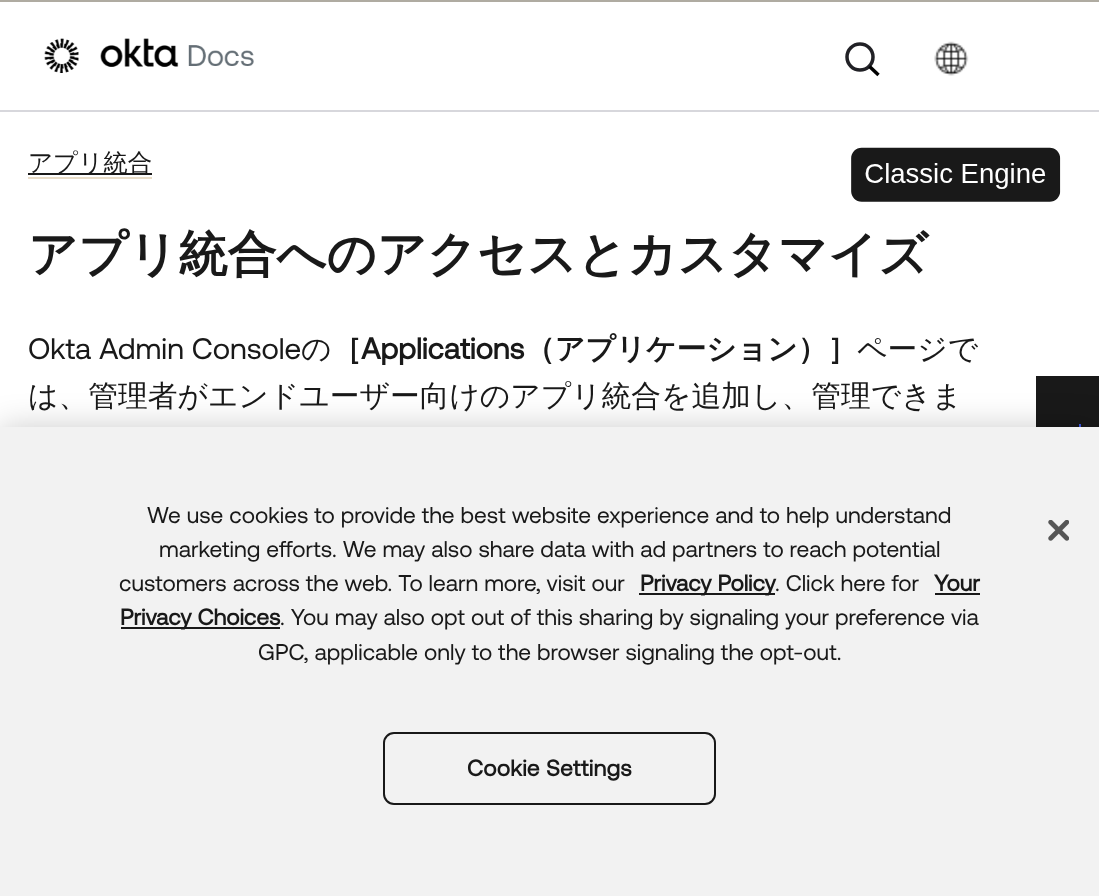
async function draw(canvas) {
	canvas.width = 1099;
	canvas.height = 896;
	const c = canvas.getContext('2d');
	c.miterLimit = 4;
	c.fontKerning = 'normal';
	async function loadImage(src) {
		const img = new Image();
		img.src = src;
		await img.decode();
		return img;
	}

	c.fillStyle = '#fff';
	c.fillRect(0, 0, 1099, 896);
	c.fillStyle = '#d7d7dc';
	c.fillRect(0, 110, 1099, 2);
	c.drawImage(await loadImage('img1.png'), 44, 38, 210, 35);
	c.beginPath();
	c.arc(860, 57, 13, 0, 2 * Math.PI);
	c.strokeStyle = '#212126';
	c.lineWidth = 3.5;
	c.stroke();
	c.beginPath();
	c.moveTo(878.5, 75);
	c.lineTo(869.5, 66.5);
	c.strokeStyle = '#000';
	c.stroke();
	c.fillStyle = '#afaba1';
	c.fillRect(0, 0, 1099, 2);
	c.drawImage(await loadImage('img2.png'), 934, 41, 35, 35);
	c.fillStyle = '#e8dcc7';
	c.fillRect(28, 177, 124, 2);
	c.fillStyle = '#191919';
	c.fillRect(28, 173, 124, 2);
	c.font = '500 24.5px WenQuanYi Zen Hei';
	c.fillText('アプリ統合', 28, 171);
	c.drawImage(await loadImage('img3.png'), 851, 147, 210, 55);
	c.font = 'bold 49px WenQuanYi Zen Hei';
	c.fillText('アプリ統合へのアクセスとカスタマイズ', 28, 271);
	c.font = '29.75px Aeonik';
	c.fillText('Okta Admin Console', 28, 359);
	c.font = '500 29.75px WenQuanYi Zen Hei';
	c.fillText('の', 301, 359);
	c.font = 'bold 29.75px WenQuanYi Zen Hei';
	c.fillText('［', 332, 359);
	c.font = 'bold 29.75px Aeonik';
	c.fillText('Applications', 361, 359);
	c.font = 'bold 29.75px WenQuanYi Zen Hei';
	c.fillText('（アプリケーション）］', 525, 359);
	c.font = '500 29.75px WenQuanYi Zen Hei';
	c.fillText('ページで', 857, 359);
	c.fillText('は、管理者がエンドユーザー向けのアプリ統合を追加し、管理できま', 28, 406);
	c.fillRect(1036, 376, 63, 51);
	c.fillStyle = '#3f59e4';
	c.fillRect(1079, 424, 2, 3);
	c.fillStyle = '#00000033';
	c.filter = 'blur(16px)';
	c.beginPath();
	c.rect(0, 427, 1099, 469);
	c.fill();
	c.filter = 'none';
	c.fillStyle = '#f2f2f2';
	c.fillRect(0, 427, 1099, 469);
	c.font = '22.75px Aeonik';
	c.fillStyle = '#191919';
	for (const [text, x, y] of [
		['We use cookies to provide the best website experience and to help understand', 147, 523],
		['marketing efforts. We may also share data with ad partners to reach potential', 159, 557],
		['customers across the web. To learn more, visit our', 119, 591],
	]) {
		c.fillText(text, x, y);
	}
	c.fillRect(639, 593, 136, 2);
	c.font = 'bold 22.75px Aeonik';
	c.fillText('Privacy Policy', 640, 591);
	c.font = '22.75px Aeonik';
	c.fillText('. Click here for', 775, 591);
	c.font = 'bold 22.75px Aeonik';
	c.fillText('Your', 934, 591);
	c.fillRect(935, 593, 45, 2);
	c.fillRect(121, 627, 159, 2);
	c.fillText('Privacy Choices', 120, 625);
	c.font = '22.75px Aeonik';
	c.fillText('. You may also opt out of this sharing by signaling your preference via', 280, 625);
	c.fillText('GPC, applicable only to the browser signaling the opt-out.', 258, 660);
	c.beginPath();
	c.roundRect(384, 733, 331, 71, 10);
	c.strokeStyle = '#191919';
	c.lineWidth = 2;
	c.stroke();
	c.letterSpacing = '0.25px';
	c.font = 'bold 22.75px Aeonik';
	c.fillText('Cookie Settings', 467, 776);
	c.drawImage(await loadImage('img4.png'), 1048, 520, 21, 21);
}

draw(document.querySelector('canvas'));
